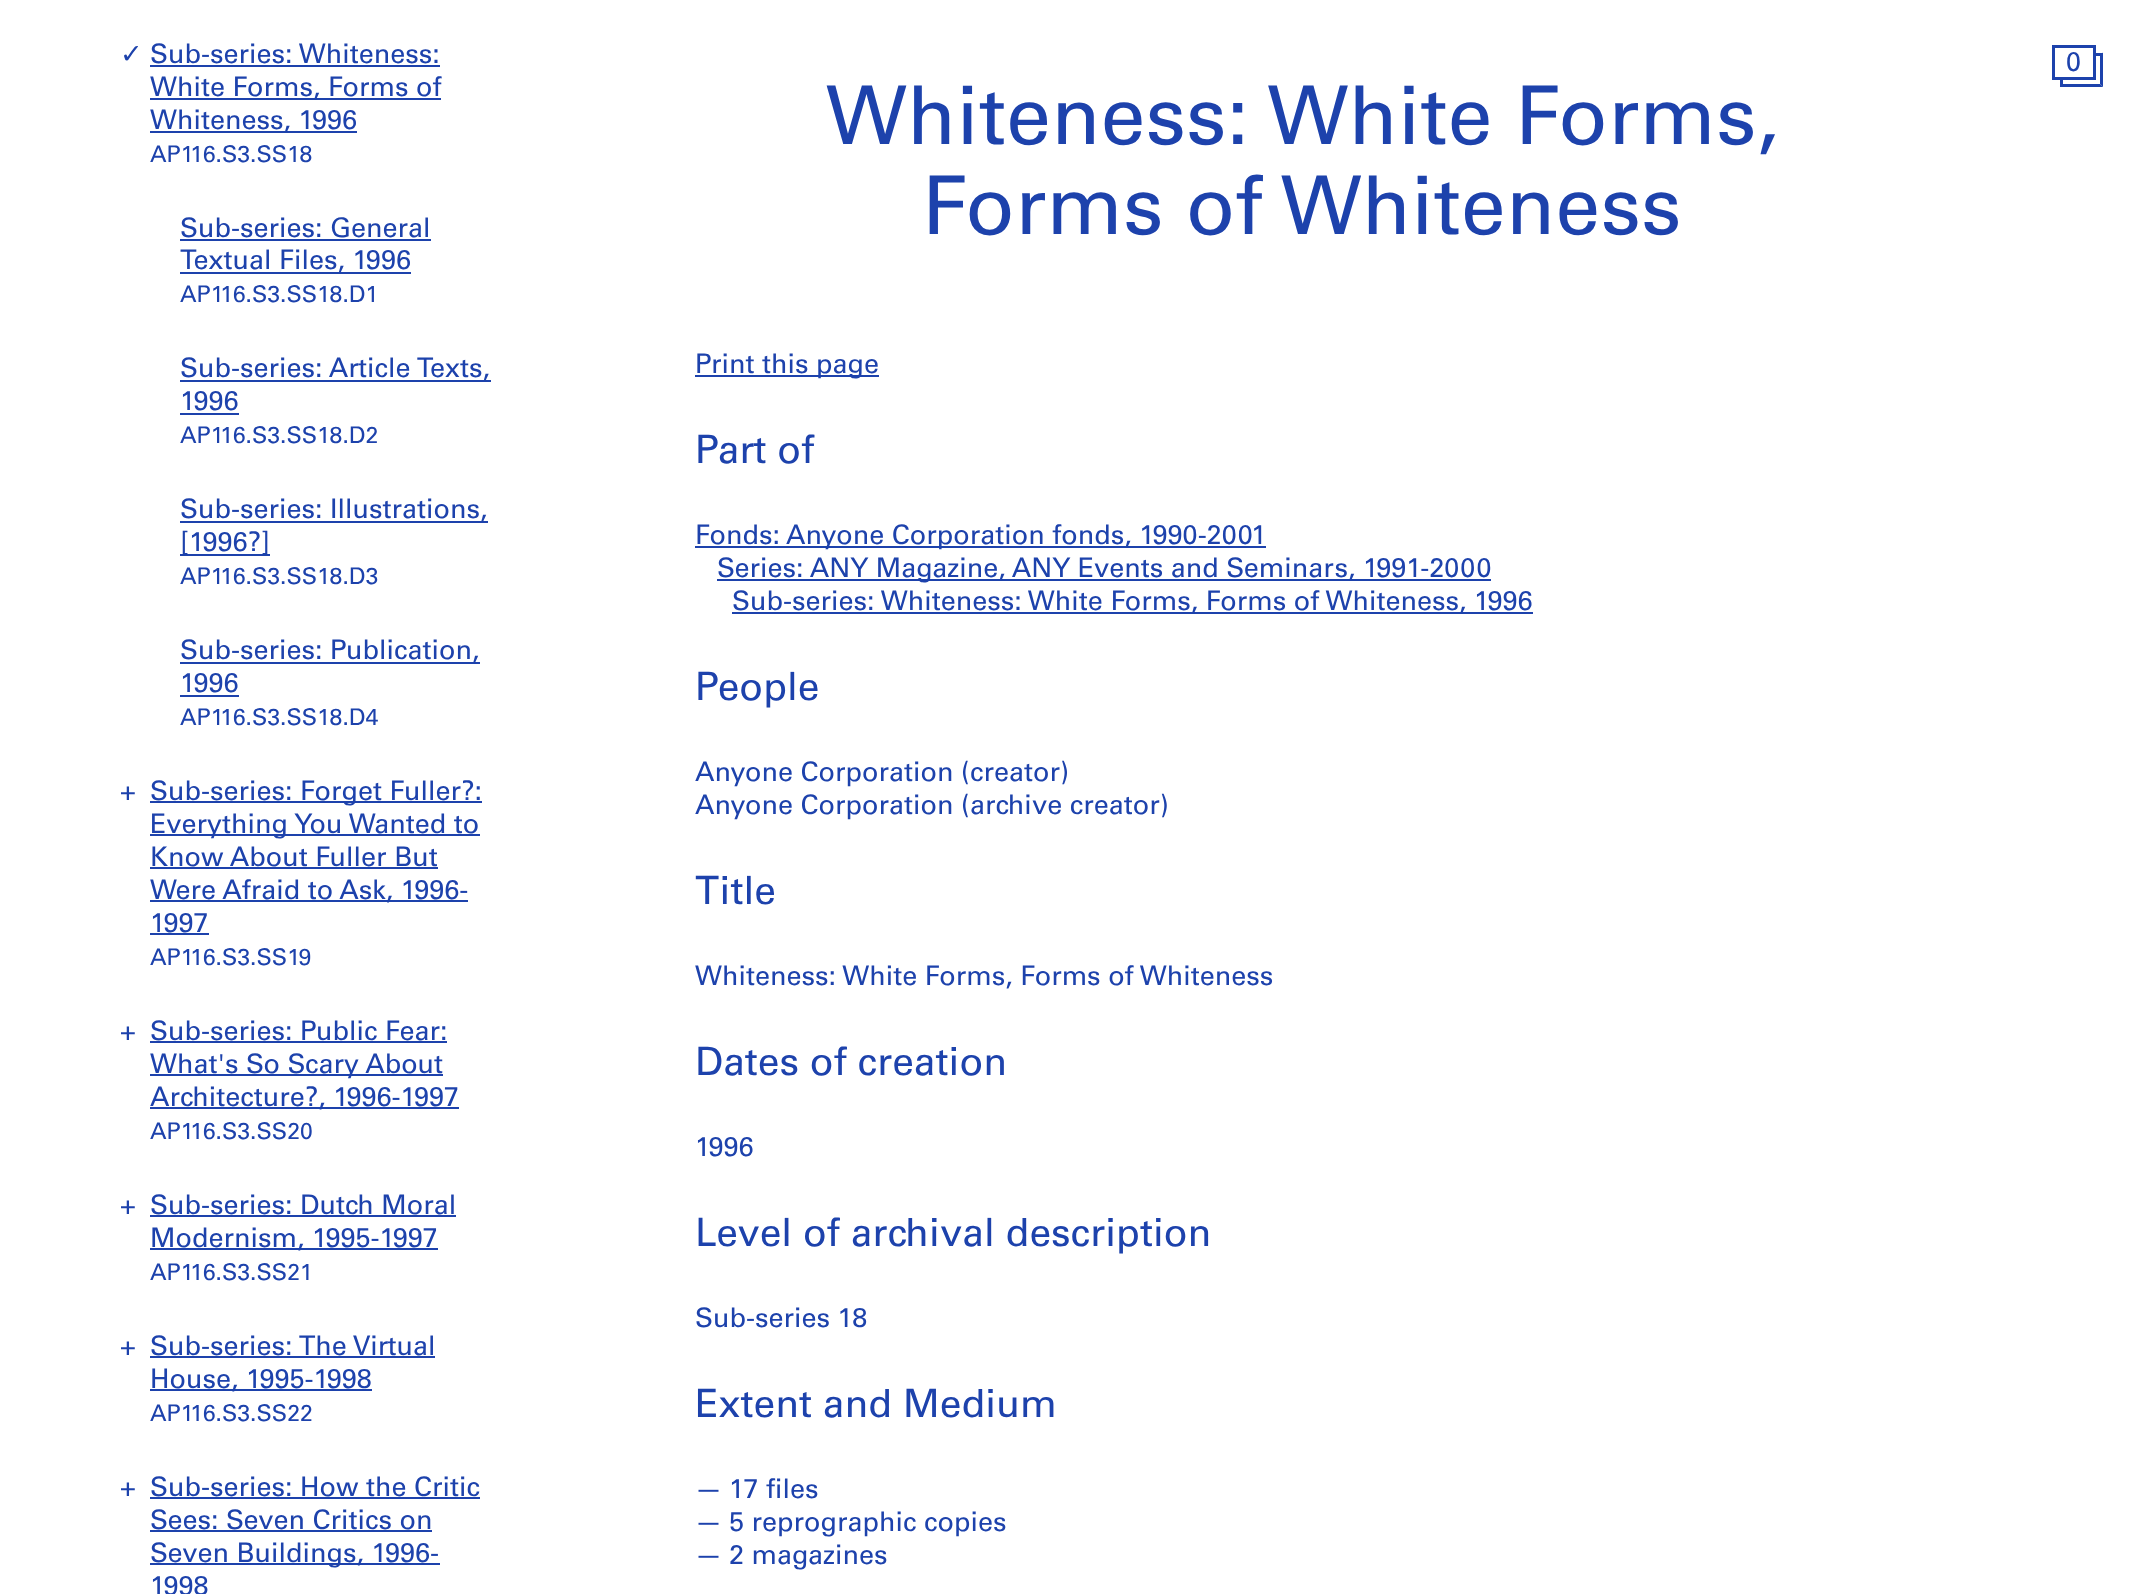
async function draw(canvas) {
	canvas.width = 2149;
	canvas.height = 1594;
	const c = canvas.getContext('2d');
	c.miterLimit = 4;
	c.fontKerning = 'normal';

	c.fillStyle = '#fff';
	c.fillRect(0, 0, 2149, 1594);
	c.font = '27px DejaVu Sans';
	c.fillStyle = '#1d42ac';
	c.fillText('✓', 120, 63);
	c.font = '27px Univers';
	c.fillText('Sub-series: Whiteness:', 150, 63);
	c.fillRect(150, 65, 290, 2);
	c.fillRect(150, 98, 291, 2);
	c.fillText('White Forms, Forms of', 150, 96);
	c.fillRect(150, 131, 207, 2);
	c.fillText('Whiteness, 1996', 150, 129);
	c.font = '23px Univers';
	c.fillText('AP116.S3.SS18', 150, 162);
	c.font = '27px Univers';
	c.fillText('Sub-series: General', 180, 237);
	c.fillRect(180, 239, 251, 2);
	c.fillRect(180, 272, 231, 2);
	c.fillText('Textual Files, 1996', 180, 269);
	c.font = '23px Univers';
	c.fillText('AP116.S3.SS18.D1', 180, 302);
	c.fillRect(180, 380, 311, 2);
	c.font = '27px Univers';
	c.fillText('Sub-series: Article Texts,', 180, 377);
	c.fillText('1996', 180, 410);
	c.fillRect(180, 413, 59, 2);
	c.font = '23px Univers';
	c.fillText('AP116.S3.SS18.D2', 180, 443);
	c.fillRect(180, 521, 308, 2);
	c.font = '27px Univers';
	c.fillText('Sub-series: Illustrations,', 180, 518);
	c.fillRect(180, 554, 90, 2);
	c.fillText('[1996?]', 180, 551);
	c.font = '23px Univers';
	c.fillText('AP116.S3.SS18.D3', 180, 584);
	c.fillRect(180, 662, 300, 2);
	c.font = '27px Univers';
	c.fillText('Sub-series: Publication,', 180, 659);
	c.fillText('1996', 180, 692);
	c.fillRect(180, 695, 59, 2);
	c.font = '23px Univers';
	c.fillText('AP116.S3.SS18.D4', 180, 725);
	c.font = '27px Univers';
	c.fillText('+', 120, 800);
	c.fillRect(150, 801, 332, 2);
	c.fillText('Sub-series: Forget Fuller?:', 150, 800);
	c.fillRect(150, 834, 330, 2);
	c.fillText('Everything You Wanted to', 150, 833);
	c.fillText('Know About Fuller But', 150, 866);
	c.fillRect(150, 867, 288, 2);
	c.fillRect(150, 900, 318, 2);
	c.fillText('Were Afraid to Ask, 1996-', 150, 899);
	c.fillText('1997', 150, 932);
	c.fillRect(150, 933, 59, 2);
	c.font = '23px Univers';
	c.fillText('AP116.S3.SS19', 150, 965);
	c.font = '27px Univers';
	c.fillText('+', 120, 1040);
	c.fillText('Sub-series: Public Fear:', 150, 1040);
	c.fillRect(150, 1041, 297, 2);
	c.fillRect(150, 1074, 293, 2);
	c.fillText('What\'s So Scary About', 150, 1073);
	c.fillRect(150, 1107, 309, 2);
	c.fillText('Architecture?, 1996-1997', 150, 1106);
	c.font = '23px Univers';
	c.fillText('AP116.S3.SS20', 150, 1139);
	c.font = '27px Univers';
	c.fillText('+', 120, 1214);
	c.fillText('Sub-series: Dutch Moral', 150, 1214);
	c.fillRect(150, 1215, 306, 2);
	c.fillRect(150, 1248, 288, 2);
	c.fillText('Modernism, 1995-1997', 150, 1247);
	c.font = '23px Univers';
	c.fillText('AP116.S3.SS21', 150, 1280);
	c.font = '27px Univers';
	c.fillText('+', 120, 1355);
	c.fillText('Sub-series: The Virtual', 150, 1355);
	c.fillRect(150, 1356, 285, 2);
	c.fillRect(150, 1389, 222, 2);
	c.fillText('House, 1995-1998', 150, 1388);
	c.font = '23px Univers';
	c.fillText('AP116.S3.SS22', 150, 1421);
	c.font = '27px Univers';
	c.fillText('+', 120, 1496);
	c.fillText('Sub-series: How the Critic', 150, 1496);
	c.fillRect(150, 1497, 330, 2);
	c.fillText('Sees: Seven Critics on', 150, 1529);
	c.fillRect(150, 1530, 282, 2);
	c.fillRect(150, 1563, 290, 2);
	c.fillText('Seven Buildings, 1996-', 150, 1562);
	c.fillText('1998', 150, 1595);
	c.font = '81px Univers';
	c.fillText('Whiteness: White Forms,', 826, 144);
	c.fillText('Forms of Whiteness', 922, 234);
	c.fillRect(695, 375, 184, 2);
	c.font = '27px Univers';
	c.fillText('Print this page', 695, 373);
	c.font = '39px Univers';
	c.fillText('Part of', 695, 463);
	c.fillRect(695, 546, 571, 2);
	c.font = '27px Univers';
	c.fillText('Fonds: Anyone Corporation fonds, 1990-2001', 695, 544);
	c.fillRect(717, 579, 774, 2);
	c.fillText('Series: ANY Magazine, ANY Events and Seminars, 1991-2000', 717, 577);
	c.fillRect(732, 612, 801, 2);
	c.fillText('Sub-series: Whiteness: White Forms, Forms of Whiteness, 1996', 732, 610);
	c.font = '39px Univers';
	c.fillText('People', 695, 700);
	c.font = '27px Univers';
	c.fillText('Anyone Corporation (creator)', 695, 781);
	c.fillText('Anyone Corporation (archive creator)', 695, 814);
	c.font = '39px Univers';
	c.fillText('Title', 695, 904);
	c.font = '27px Univers';
	c.fillText('Whiteness: White Forms, Forms of Whiteness', 695, 985);
	c.font = '39px Univers';
	c.fillText('Dates of creation', 695, 1075);
	c.font = '27px Univers';
	c.fillText('1996', 695, 1156);
	c.font = '39px Univers';
	c.fillText('Level of archival description', 695, 1246);
	c.font = '27px Univers';
	c.fillText('Sub-series 18', 695, 1327);
	c.font = '39px Univers';
	c.fillText('Extent and Medium', 695, 1417);
	c.font = '27px Univers';
	for (const [text, x, y] of [
		['—', 695, 1498],
		['17 files', 729, 1498],
		['—', 695, 1531],
		['5 reprographic copies', 729, 1531],
		['—', 695, 1564],
		['2 magazines', 729, 1564],
	]) {
		c.fillText(text, x, y);
	}
	c.beginPath();
	c.moveTo(2103, 52.5);
	c.lineTo(2103, 87);
	c.lineTo(2100, 84);
	c.lineTo(2100, 55.5);
	c.closePath();
	c.fill();
	c.fillRect(2094, 53, 9, 3);
	c.strokeStyle = '#1d42ac';
	c.lineWidth = 3;
	c.strokeRect(2053.5, 46.5, 41, 32);
	c.fillText('0', 2066, 71);
	c.beginPath();
	c.moveTo(2103, 87);
	c.lineTo(2060, 87);
	c.lineTo(2062, 84);
	c.lineTo(2100, 84);
	c.closePath();
	c.fill();
	c.fillRect(2060, 80, 3, 7);
}

draw(document.querySelector('canvas'));
